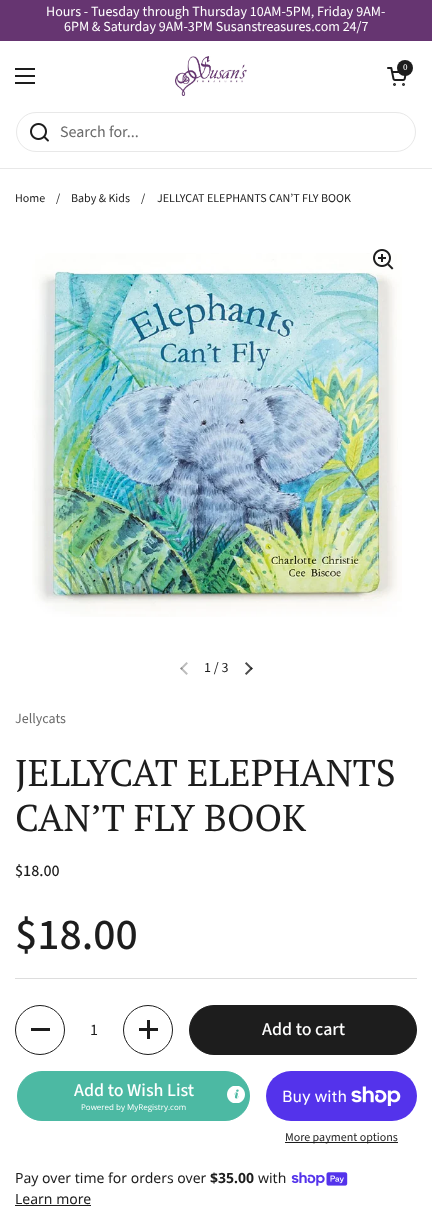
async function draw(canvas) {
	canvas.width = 432;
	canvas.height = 1216;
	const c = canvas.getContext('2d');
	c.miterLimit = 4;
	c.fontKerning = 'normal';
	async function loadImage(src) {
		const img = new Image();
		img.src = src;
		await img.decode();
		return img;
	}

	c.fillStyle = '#fff';
	c.fillRect(0, 0, 432, 1216);
	c.fillStyle = '#663571';
	c.fillRect(0, 0, 432, 41);
	c.font = '14px Source Sans Pro';
	c.fillStyle = '#fff';
	c.fillText('Hours - Tuesday through Thursday 10AM-5PM, Friday 9AM-', 46, 16);
	c.fillText('6PM & Saturday 9AM-3PM Susanstreasures.com 24/7', 64, 31);
	for (const [x, y, w, h, color] of [
		[15, 68, 20, 2, '#1d1d1d'],
		[15, 75, 20, 2, '#1d1d1d'],
		[15, 82, 20, 2, '#1d1d1d'],
	]) {
		c.fillStyle = color;
		c.fillRect(x, y, w, h);
	}
	c.drawImage(await loadImage('img1.png'), 175, 56, 72, 40);
	c.drawImage(await loadImage('img2.png'), 387, 67, 20, 19);
	c.beginPath();
	c.arc(405, 68, 8, 0, 2 * Math.PI);
	c.fill();
	c.font = '500 9px Source Sans Pro';
	c.fillStyle = '#fff';
	c.fillText('0', 403, 70);
	c.fillStyle = '#e8e8e8';
	c.fillRect(0, 168, 432, 1);
	c.beginPath();
	c.roundRect(16.5, 112.5, 399, 39, 19.5);
	c.strokeStyle = '#e8e8e8';
	c.stroke();
	c.drawImage(await loadImage('img3.png'), 30, 123, 19, 19);
	c.font = '16px Source Sans Pro';
	c.fillStyle = '#6a6a6a';
	c.fillText('Search for...', 60, 137);
	c.font = '12px Source Sans Pro';
	c.fillStyle = '#1d1d1d';
	for (const [text, x, y] of [
		['Home', 15, 202],
		['/', 56, 202],
		['Baby & Kids', 71, 202],
		['/', 141, 202],
		['JELLYCAT ELEPHANTS CAN’T FLY BOOK', 157, 202],
	]) {
		c.fillText(text, x, y);
	}
	c.drawImage(await loadImage('img5.png'), 32, 253, 370, 364);
	c.drawImage(await loadImage('img4.png'), 373, 249, 21, 21);
	c.drawImage(await loadImage('img6.png'), 180, 662, 8, 13);
	c.font = '14px Source Sans Pro';
	c.fillText('1 / 3', 204, 672);
	c.drawImage(await loadImage('img7.png'), 245, 662, 8, 13);
	c.fillStyle = '#6a6a6a';
	c.fillText('Jellycats', 15, 723);
	c.font = '37.25px PT Serif';
	c.fillStyle = '#1d1d1d';
	c.fillText('JELLYCAT ELEPHANTS', 15, 786);
	c.fillText('CAN’T FLY BOOK', 15, 831);
	c.font = '500 16px Source Sans Pro';
	c.fillText('$18.00', 15, 876);
	c.font = '500 44px Source Sans Pro';
	c.fillText('$18.00', 15, 949);
	c.fillStyle = '#ddd';
	c.fillRect(15, 978, 402, 1);
	c.beginPath();
	c.arc(40, 1030, 24.5, 0, 2 * Math.PI);
	c.strokeStyle = '#1d1d1d';
	c.stroke();
	c.fillStyle = '#1d1d1d';
	c.fillRect(31, 1028, 19, 3);
	c.font = '16px Source Sans Pro';
	c.fillText('1', 90, 1035);
	c.beginPath();
	c.arc(148, 1030, 24.5, 0, 2 * Math.PI);
	c.stroke();
	c.fillRect(147, 1020, 3, 19);
	c.fillRect(139, 1028, 19, 3);
	c.beginPath();
	c.roundRect(189.5, 1005.5, 227, 49, 24.5);
	c.fill();
	c.stroke();
	c.font = '500 18px Source Sans Pro';
	c.fillStyle = '#fff';
	c.fillText('Add to cart', 262, 1035);
	c.fillStyle = '#4cb9a3';
	c.beginPath();
	c.roundRect(17.5, 1071.5, 232, 49, 24.5);
	c.fill();
	c.strokeStyle = '#4cb9a3';
	c.stroke();
	c.fillStyle = '#fff';
	c.fillText('Add to Wish List', 74, 1096);
	c.font = '8px Open Sans';
	c.fillText('Powered by MyRegistry.com', 81, 1110);
	c.drawImage(await loadImage('img8.png'), 227, 1086, 18, 17);
	c.fillStyle = '#5433eb';
	c.beginPath();
	c.roundRect(266, 1071, 151, 50, 25);
	c.fill();
	c.font = '16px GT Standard';
	c.fillStyle = '#fff';
	c.fillText('Buy with', 282, 1102);
	c.drawImage(await loadImage('img9.png'), 351, 1086, 50, 20);
	c.fillStyle = '#1d1d1d';
	c.fillRect(285, 1142, 113, 1);
	c.font = '12px Source Sans Pro';
	c.fillText('More payment options', 285, 1141);
	c.font = '14px Noto Sans';
	c.fillText('Pay over time for orders over', 15, 1183);
	c.font = 'bold 14px Noto Sans';
	c.fillText('$35.00', 210, 1183);
	c.font = '14px Noto Sans';
	c.fillText('with', 258, 1183);
	c.drawImage(await loadImage('img10.png'), 291, 1172, 57, 14);
	c.fillText('Learn more', 15, 1204);
	c.fillRect(15, 1205, 76, 1);
}

draw(document.querySelector('canvas'));
